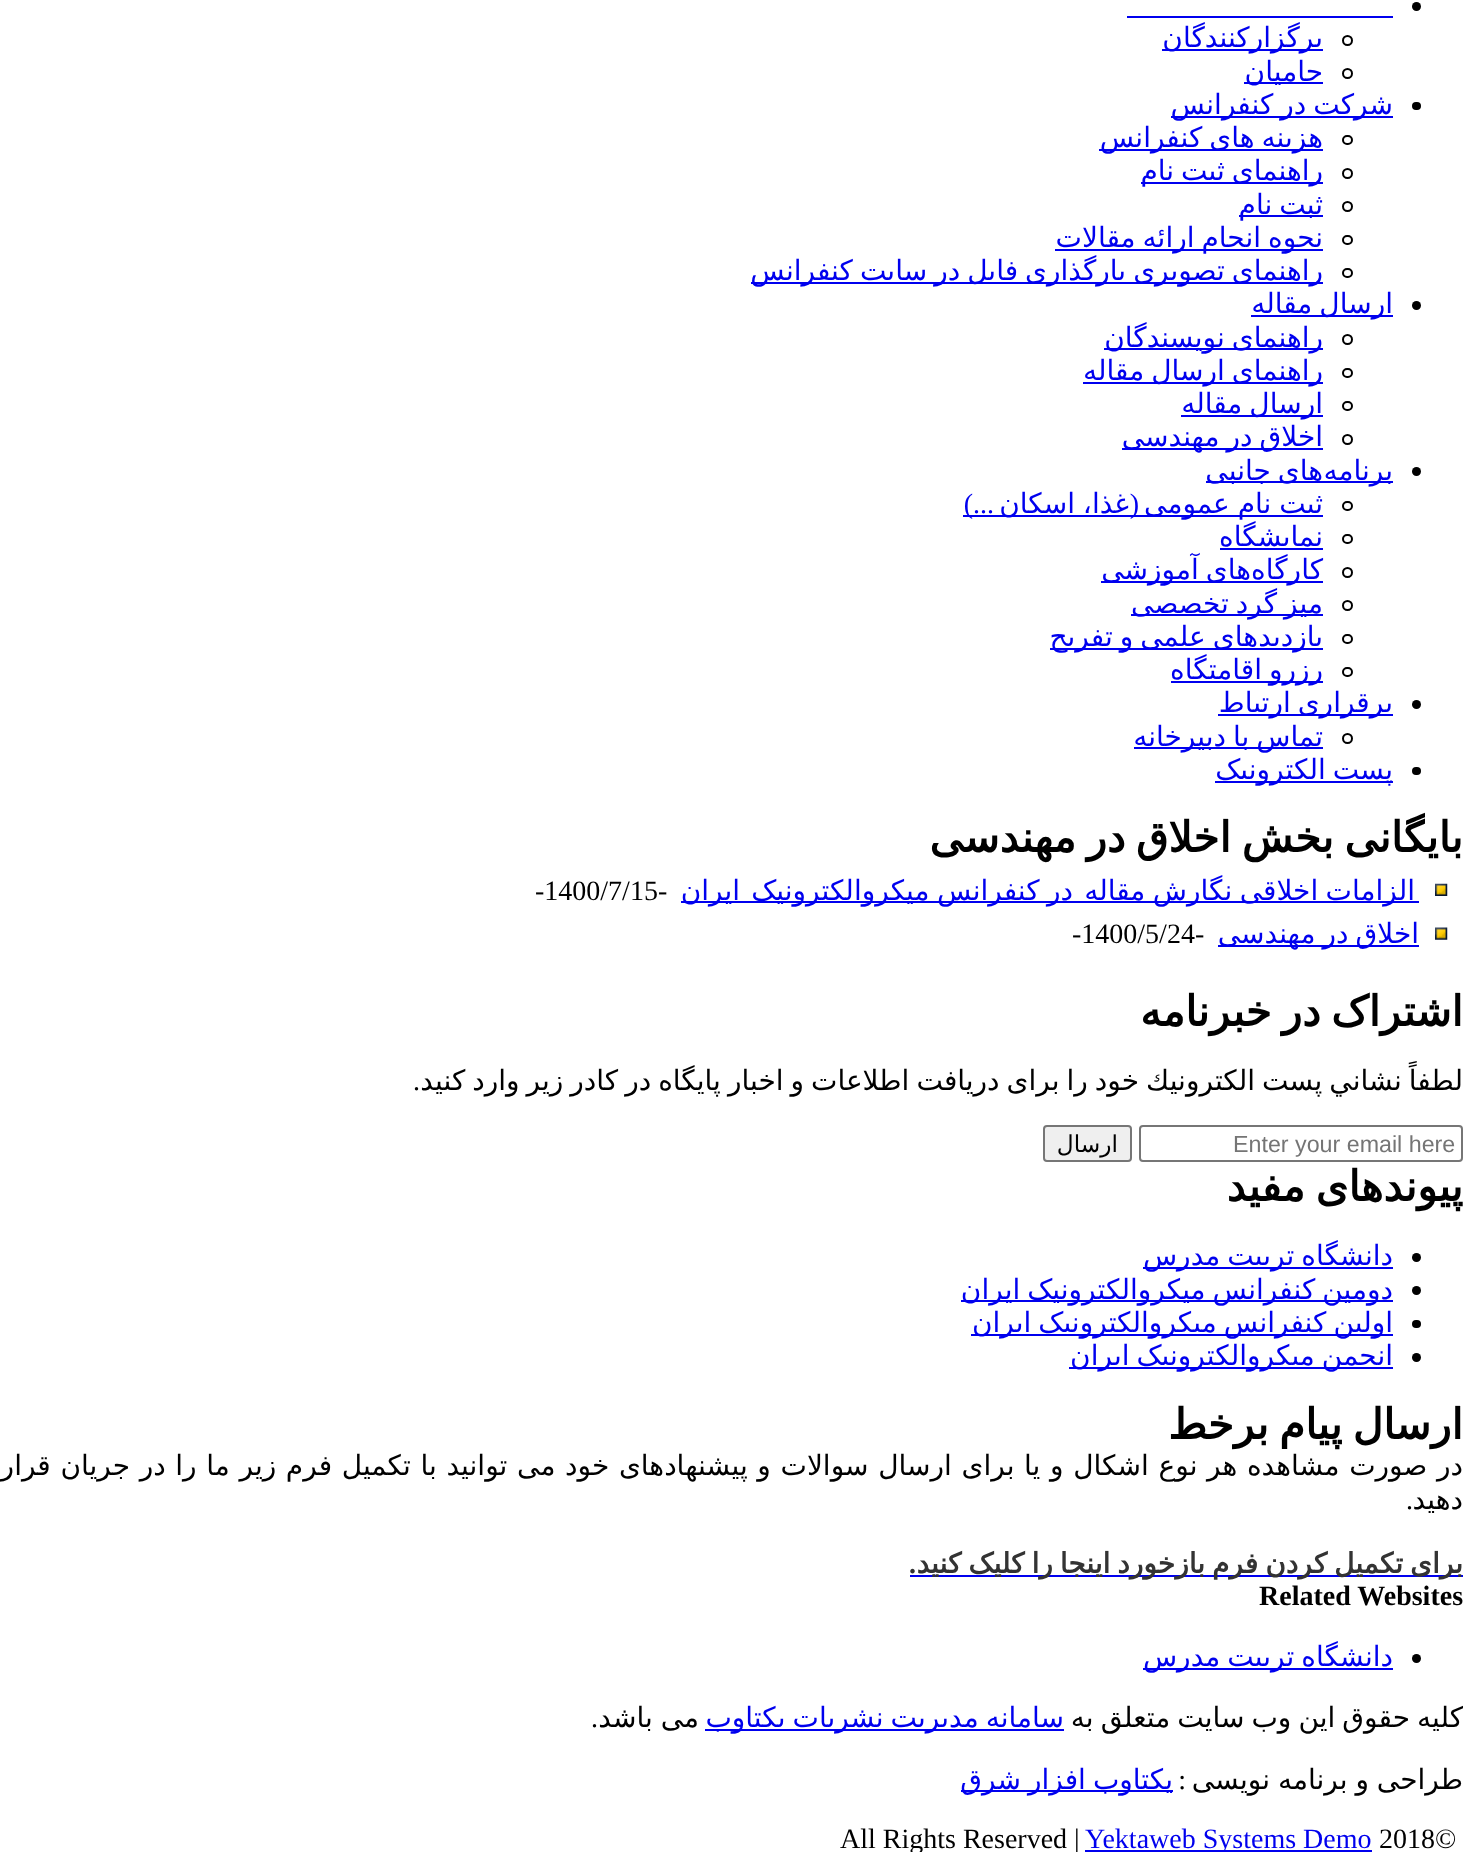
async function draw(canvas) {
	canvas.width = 1463;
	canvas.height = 1852;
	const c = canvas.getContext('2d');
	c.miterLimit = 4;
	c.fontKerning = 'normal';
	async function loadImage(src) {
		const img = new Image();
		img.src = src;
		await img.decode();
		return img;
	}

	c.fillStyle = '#fff';
	c.fillRect(0, 0, 1463, 1852);
	c.fillStyle = '#000';
	c.beginPath();
	c.arc(1416.5, 6.5, 4.5, 0, 2 * Math.PI);
	c.fill();
	c.fillStyle = '#00e';
	c.fillRect(1127, 16, 266, 2);
	c.beginPath();
	c.arc(1347.5, 40.5, 4.5, 0, 2 * Math.PI);
	c.strokeStyle = '#000';
	c.lineWidth = 2;
	c.stroke();
	c.fillRect(1162, 49, 161, 2);
	c.direction = 'rtl';
	c.font = '28px DejaVu Sans';
	c.fillText('برگزارکنندگان', 1323, 47);
	c.beginPath();
	c.arc(1347.5, 73.5, 4.5, 0, 2 * Math.PI);
	c.stroke();
	c.fillRect(1244, 82, 79, 2);
	c.fillText('حامیان', 1323, 81);
	c.fillStyle = '#000';
	c.beginPath();
	c.roundRect(1412, 102, 9, 8, 4);
	c.fill();
	c.fillStyle = '#00e';
	c.fillRect(1171, 116, 222, 2);
	c.wordSpacing = '-1.9px';
	c.fillText('شرکت در کنفرانس', 1393, 114);
	c.beginPath();
	c.roundRect(1343, 136, 9, 8, 4);
	c.stroke();
	c.fillRect(1099, 149, 224, 2);
	c.fillText('هزینه های کنفرانس', 1323, 147);
	c.beginPath();
	c.arc(1347.5, 173.5, 4.5, 0, 2 * Math.PI);
	c.stroke();
	c.fillRect(1141, 182, 182, 2);
	c.fillText('راهنمای ثبت نام', 1323, 180);
	c.beginPath();
	c.arc(1347.5, 206.5, 4.5, 0, 2 * Math.PI);
	c.stroke();
	c.fillRect(1239, 215, 84, 2);
	c.fillText('ثبت نام', 1323, 214);
	c.beginPath();
	c.roundRect(1343, 236, 9, 8, 4);
	c.stroke();
	c.fillRect(1055, 249, 268, 2);
	c.fillText('نحوه انجام ارائه مقالات', 1323, 247);
	c.beginPath();
	c.roundRect(1343, 269, 9, 8, 4);
	c.stroke();
	c.fillRect(751, 282, 572, 2);
	c.fillText('راهنمای تصویری بارگذاری فایل در سایت کنفرانس', 1323, 280);
	c.fillStyle = '#000';
	c.beginPath();
	c.arc(1416.5, 305.5, 4.5, 0, 2 * Math.PI);
	c.fill();
	c.fillStyle = '#00e';
	c.fillRect(1251, 315, 142, 2);
	c.fillText('ارسال مقاله', 1393, 313);
	c.beginPath();
	c.arc(1347.5, 339.5, 4.5, 0, 2 * Math.PI);
	c.stroke();
	c.fillRect(1104, 348, 219, 2);
	c.fillText('راهنمای نویسندگان', 1323, 347);
	c.beginPath();
	c.roundRect(1343, 369, 9, 8, 4);
	c.stroke();
	c.fillRect(1083, 382, 240, 2);
	c.fillText('راهنمای ارسال مقاله', 1323, 380);
	c.beginPath();
	c.roundRect(1343, 402, 9, 8, 4);
	c.stroke();
	c.fillRect(1181, 415, 142, 2);
	c.fillText('ارسال مقاله', 1323, 413);
	c.beginPath();
	c.arc(1347.5, 439.5, 4.5, 0, 2 * Math.PI);
	c.stroke();
	c.fillRect(1122, 448, 201, 2);
	c.fillText('اخلاق در مهندسی', 1323, 446);
	c.fillStyle = '#000';
	c.beginPath();
	c.arc(1416.5, 471.5, 4.5, 0, 2 * Math.PI);
	c.fill();
	c.fillStyle = '#00e';
	c.fillRect(1206, 481, 187, 2);
	c.wordSpacing = '0px';
	c.fillText('برنامه', 1393, 480);
	c.wordSpacing = '-1.9px';
	c.fillText('های جانبی', 1323, 480);
	c.beginPath();
	c.roundRect(1343, 502, 9, 8, 4);
	c.stroke();
	c.fillRect(963, 515, 360, 2);
	c.wordSpacing = '-1px';
	c.fillText('ثبت نام عمومی', 1323, 513);
	c.wordSpacing = '0px';
	c.font = '28px Liberation Serif';
	c.fillText('(', 1139, 513);
	c.wordSpacing = '-1px';
	c.font = '28px DejaVu Sans';
	c.fillText('غذا، اسکان', 1129, 513);
	c.wordSpacing = '0px';
	c.font = '28px Liberation Serif';
	c.fillText('...)', 994, 513);
	c.beginPath();
	c.roundRect(1343, 535, 9, 8, 4);
	c.stroke();
	c.fillRect(1220, 548, 103, 2);
	c.font = '28px DejaVu Sans';
	c.fillText('نمایشگاه', 1323, 546);
	c.beginPath();
	c.arc(1347.5, 572.5, 4.5, 0, 2 * Math.PI);
	c.stroke();
	c.fillRect(1101, 581, 222, 2);
	c.fillText('کارگاه', 1323, 579);
	c.wordSpacing = '-1.9px';
	c.fillText('های آموزشی', 1251, 579);
	c.beginPath();
	c.arc(1347.5, 605.5, 4.5, 0, 2 * Math.PI);
	c.stroke();
	c.fillRect(1131, 614, 192, 2);
	c.fillText('میز گرد تخصصی', 1323, 613);
	c.beginPath();
	c.roundRect(1343, 635, 9, 8, 4);
	c.stroke();
	c.fillRect(1050, 648, 273, 2);
	c.fillText('های علمی و تفریح', 1258, 646);
	c.wordSpacing = '0px';
	c.fillText('بازدید', 1323, 646);
	c.beginPath();
	c.roundRect(1343, 668, 9, 8, 4);
	c.stroke();
	c.fillRect(1171, 681, 152, 2);
	c.wordSpacing = '-1.9px';
	c.fillText('رزرو اقامتگاه', 1323, 679);
	c.fillStyle = '#000';
	c.beginPath();
	c.arc(1416.5, 704.5, 4.5, 0, 2 * Math.PI);
	c.fill();
	c.fillStyle = '#00e';
	c.fillRect(1218, 714, 175, 2);
	c.fillText('برقراری ارتباط', 1393, 712);
	c.beginPath();
	c.arc(1347.5, 738.5, 4.5, 0, 2 * Math.PI);
	c.stroke();
	c.fillRect(1134, 747, 189, 2);
	c.fillText('تماس با دبیرخانه', 1323, 746);
	c.fillStyle = '#000';
	c.beginPath();
	c.roundRect(1412, 767, 9, 8, 4);
	c.fill();
	c.fillStyle = '#00e';
	c.fillRect(1215, 781, 178, 2);
	c.fillText('پست الکترونیک', 1393, 779);
	c.wordSpacing = '-3px';
	c.font = 'bold 42px DejaVu Sans';
	c.fillStyle = '#000';
	c.fillText('بایگانی بخش', 1463, 852);
	c.fillText('اخلاق در مهندسی', 1231, 852);
	c.drawImage(await loadImage('img1.png'), 1435, 883, 13, 13);
	c.fillStyle = '#00e';
	c.fillRect(681, 901, 738, 2);
	c.wordSpacing = '-1.5px';
	c.font = '28px DejaVu Sans';
	c.fillText('الزامات اخلاقی نگارش مقاله', 1415, 900);
	c.fillText('در کنفرانس میکروالکترونیک', 1073, 900);
	c.wordSpacing = '0px';
	c.fillText('ایران', 740, 900);
	c.direction = 'ltr';
	c.font = '28px Liberation Serif';
	c.fillStyle = '#000';
	c.fillText('-1400/7/15-', 535, 900);
	c.drawImage(await loadImage('img2.png'), 1435, 927, 13, 13);
	c.fillStyle = '#00e';
	c.fillRect(1218, 945, 201, 2);
	c.wordSpacing = '-1.9px';
	c.direction = 'rtl';
	c.font = '28px DejaVu Sans';
	c.fillText('اخلاق در مهندسی', 1419, 943);
	c.wordSpacing = '0px';
	c.direction = 'ltr';
	c.font = '28px Liberation Serif';
	c.fillStyle = '#000';
	c.fillText('-1400/5/24-', 1072, 943);
	c.wordSpacing = '-3px';
	c.direction = 'rtl';
	c.font = 'bold 42px DejaVu Sans';
	c.fillText('اشتراک در خبرنامه', 1463, 1026);
	c.wordSpacing = '-1.9px';
	c.font = '28px DejaVu Sans';
	c.fillText('لطفاً نشاني پست الكترونيك خود را برای دريافت اطلاعات و اخبار پايگاه در كادر زير وارد كنيد', 1463, 1090);
	c.wordSpacing = '0px';
	c.font = '28px Liberation Serif';
	c.fillText('.', 420, 1090);
	c.beginPath();
	c.roundRect(1140, 1126, 322, 35, 3);
	c.strokeStyle = '#767676';
	c.stroke();
	c.direction = 'ltr';
	c.font = '23.25px Liberation Sans';
	c.fillStyle = '#757575';
	c.fillText('Enter your email here', 1233, 1152);
	c.fillStyle = '#efefef';
	c.beginPath();
	c.roundRect(1044, 1126, 87, 35, 3);
	c.fill();
	c.stroke();
	c.direction = 'rtl';
	c.font = '23.25px DejaVu Sans';
	c.fillStyle = '#000';
	c.fillText('ارسال', 1118, 1152);
	c.wordSpacing = '-3px';
	c.font = 'bold 42px DejaVu Sans';
	c.fillText('پیوندهای مفید', 1463, 1201);
	c.beginPath();
	c.arc(1416.5, 1257.5, 4.5, 0, 2 * Math.PI);
	c.fill();
	c.fillStyle = '#00e';
	c.fillRect(1143, 1267, 250, 2);
	c.wordSpacing = '-1.9px';
	c.font = '28px DejaVu Sans';
	c.fillText('دانشگاه تربیت مدرس', 1393, 1265);
	c.fillStyle = '#000';
	c.beginPath();
	c.arc(1416.5, 1290.5, 4.5, 0, 2 * Math.PI);
	c.fill();
	c.fillStyle = '#00e';
	c.fillRect(961, 1300, 432, 2);
	c.fillText('دومین کنفرانس میکروالکترونیک ایران', 1393, 1299);
	c.fillStyle = '#000';
	c.beginPath();
	c.roundRect(1412, 1320, 9, 8, 4);
	c.fill();
	c.fillStyle = '#00e';
	c.fillRect(971, 1334, 422, 2);
	c.fillText('اولین کنفرانس میکروالکترونیک ایران', 1393, 1332);
	c.fillStyle = '#000';
	c.beginPath();
	c.arc(1416.5, 1357.5, 4.5, 0, 2 * Math.PI);
	c.fill();
	c.fillStyle = '#00e';
	c.fillRect(1069, 1367, 324, 2);
	c.fillText('انجمن میکروالکترونیک ایران', 1393, 1365);
	c.wordSpacing = '-3px';
	c.font = 'bold 42px DejaVu Sans';
	c.fillStyle = '#000';
	c.fillText('ارسال پیام برخط', 1463, 1439);
	c.wordSpacing = '0.75px';
	c.font = '28px DejaVu Sans';
	c.fillText('در صورت مشاهده هر نوع اشکال و یا برای ارسال سوالات و پیشنهادهای خود می توانید با تکمیل فرم زیر ما را در جریان قرار', 1463, 1475);
	c.wordSpacing = '0px';
	c.fillText('دهید', 1463, 1509);
	c.font = '28px Liberation Serif';
	c.fillText('.', 1413, 1509);
	c.fillStyle = '#00e';
	c.fillRect(910, 1575, 553, 2);
	c.wordSpacing = '-1.9px';
	c.font = 'bold 28px DejaVu Sans';
	c.fillStyle = '#333';
	c.fillText('برای تکمیل کردن فرم بازخورد اینجا را کلیک کنید', 1463, 1573);
	c.wordSpacing = '0px';
	c.font = 'bold 28px Liberation Serif';
	c.fillText('.', 916, 1573);
	c.direction = 'ltr';
	c.fillStyle = '#000';
	c.fillText('Related Websites', 1259, 1605);
	c.beginPath();
	c.arc(1416.5, 1658.5, 4.5, 0, 2 * Math.PI);
	c.fill();
	c.fillStyle = '#00e';
	c.fillRect(1143, 1668, 250, 2);
	c.wordSpacing = '-1.9px';
	c.direction = 'rtl';
	c.font = '28px DejaVu Sans';
	c.fillText('دانشگاه تربیت مدرس', 1393, 1666);
	c.fillStyle = '#000';
	c.fillText('کلیه حقوق این وب سایت متعلق به', 1463, 1727);
	c.fillStyle = '#00e';
	c.fillRect(705, 1729, 359, 2);
	c.fillText('سامانه مدیریت نشریات یکتاوب', 1064, 1727);
	c.wordSpacing = '-1px';
	c.fillStyle = '#000';
	c.fillText('می باشد', 699, 1727);
	c.wordSpacing = '0px';
	c.font = '28px Liberation Serif';
	c.fillText('.', 598, 1727);
	c.wordSpacing = '-1px';
	c.font = '28px DejaVu Sans';
	c.fillText('طراحی و برنامه نویسی', 1463, 1789);
	c.wordSpacing = '0px';
	c.font = '28px Liberation Serif';
	c.fillText(':', 1186, 1789);
	c.fillStyle = '#00e';
	c.fillRect(961, 1790, 212, 2);
	c.wordSpacing = '-1.9px';
	c.font = '28px DejaVu Sans';
	c.fillText('یکتاوب افزار شرق', 1173, 1789);
	c.wordSpacing = '0px';
	c.direction = 'ltr';
	c.font = '28px Liberation Serif';
	c.fillStyle = '#000';
	c.fillText('2018©', 1379, 1848);
	c.fillStyle = '#00e';
	c.fillRect(1085, 1850, 287, 2);
	c.fillText('Yektaweb Systems Demo', 1085, 1848);
	c.fillStyle = '#000';
	c.fillText('All Rights Reserved |', 840, 1848);
}

draw(document.querySelector('canvas'));
